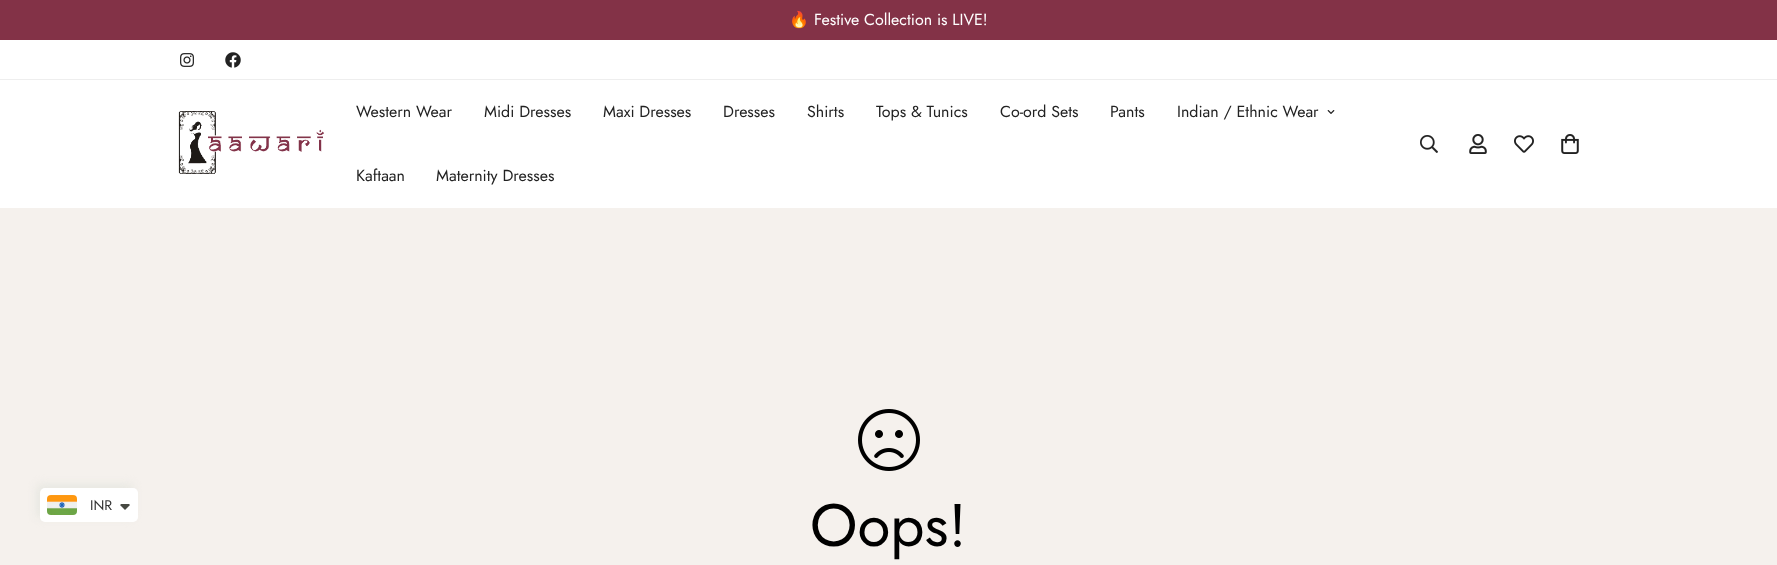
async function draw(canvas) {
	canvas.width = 1777;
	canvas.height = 565;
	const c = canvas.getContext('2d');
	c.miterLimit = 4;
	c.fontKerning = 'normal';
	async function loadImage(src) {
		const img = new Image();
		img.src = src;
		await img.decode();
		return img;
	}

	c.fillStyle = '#fff';
	c.fillRect(0, 0, 1777, 565);
	c.fillStyle = '#833247';
	c.fillRect(0, 0, 1777, 40);
	c.font = '16px Noto Color Emoji';
	c.fillStyle = '#fff';
	c.fillText('🔥', 789, 25);
	c.font = '16px Jost';
	c.fillText('Festive Collection is LIVE!', 814, 25);
	c.fillStyle = '#eee';
	c.fillRect(0, 79, 1777, 1);
	c.drawImage(await loadImage('img1.png'), 180, 53, 14, 14);
	c.drawImage(await loadImage('img2.png'), 225, 52, 16, 16);
	c.drawImage(await loadImage('img3.png'), 178, 111, 146, 63);
	c.fillStyle = '#222';
	for (const [text, x, y] of [
		['Western Wear', 356, 117],
		['Midi Dresses', 484, 117],
		['Maxi Dresses', 603, 117],
		['Dresses', 723, 117],
		['Shirts', 807, 117],
		['Tops & Tunics', 876, 117],
		['Co-ord Sets', 1000, 117],
		['Pants', 1110, 117],
		['Indian / Ethnic Wear', 1177, 117],
	]) {
		c.fillText(text, x, y);
	}
	c.drawImage(await loadImage('img4.png'), 1327, 110, 8, 4);
	c.fillText('Kaftaan', 356, 181);
	c.fillText('Maternity Dresses', 436, 181);
	c.drawImage(await loadImage('img5.png'), 1420, 135, 18, 18);
	c.drawImage(await loadImage('img6.png'), 1469, 134, 18, 20);
	c.drawImage(await loadImage('img7.png'), 1514, 135, 20, 18);
	c.drawImage(await loadImage('img8.png'), 1561, 134, 18, 20);
	c.fillStyle = '#f5f1ed';
	c.fillRect(0, 208, 1777, 357);
	c.fillStyle = '#e8e8e2';
	c.filter = 'blur(4.5px)';
	c.beginPath();
	c.roundRect(36, 484, 98, 34, 5);
	c.fill();
	c.filter = 'none';
	c.fillStyle = '#fff';
	c.beginPath();
	c.roundRect(40, 488, 98, 34, 5);
	c.fill();
	c.drawImage(await loadImage('img9.png'), 47, 495, 30, 20);
	c.font = '14px Jost';
	c.fillStyle = '#333';
	c.fillText('INR', 90, 510);
	c.fillStyle = '#474942';
	c.beginPath();
	c.moveTo(122, 504);
	c.bezierCurveTo(121, 504, 120.5, 504.5, 120, 505);
	c.lineTo(125, 510);
	c.lineTo(130, 505);
	c.lineTo(129, 504);
	c.closePath();
	c.fill();
	c.drawImage(await loadImage('img10.png'), 858, 409, 62, 62);
	c.font = '60px Jost';
	c.fillStyle = '#000';
	c.fillText('Oops!', 810, 546);
}

draw(document.querySelector('canvas'));
